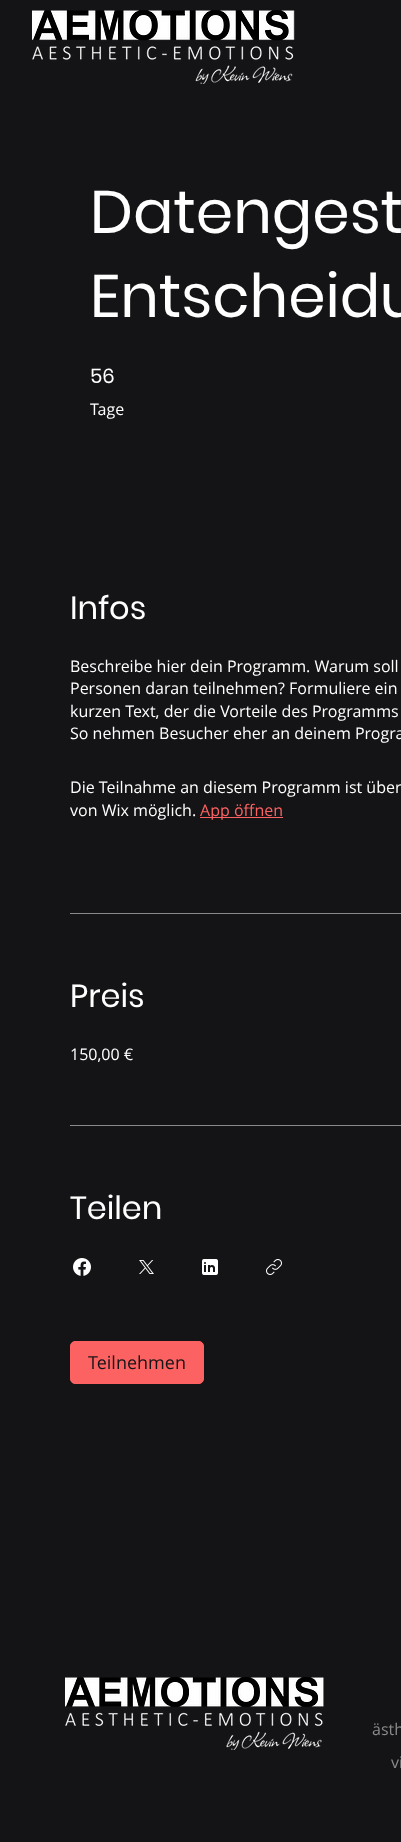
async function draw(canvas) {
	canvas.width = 401;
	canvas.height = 1842;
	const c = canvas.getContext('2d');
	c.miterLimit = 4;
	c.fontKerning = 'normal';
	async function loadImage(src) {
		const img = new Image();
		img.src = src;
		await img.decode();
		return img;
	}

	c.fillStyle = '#141416';
	c.fillRect(0, 0, 401, 1842);
	c.drawImage(await loadImage('img1.png'), 32, 10, 263, 74);
	c.font = '60px Poppins';
	c.fillStyle = '#fff';
	c.fillText('Datengest', 90, 233);
	c.fillText('Entscheidu', 90, 317);
	c.font = '20px Poppins';
	c.fillText('56', 90, 383);
	c.font = '16px Open Sans';
	c.fillText('Tage', 90, 415);
	c.fillStyle = '#8a8a8a';
	c.fillRect(70, 913, 331, 1);
	c.font = '32px Poppins';
	c.fillStyle = '#fff';
	c.fillText('Infos', 70, 619);
	c.font = '16px Open Sans';
	for (const [text, x, y] of [
		['Beschreibe hier dein Programm. Warum soll', 70, 672],
		['Personen daran teilnehmen? Formuliere ein', 70, 694],
		['kurzen Text, der die Vorteile des Programms', 70, 717],
		['So nehmen Besucher eher an deinem Progra', 70, 739],
		['Die Teilnahme an diesem Programm ist über', 70, 793],
		['von Wix möglich.', 70, 816],
	]) {
		c.fillText(text, x, y);
	}
	c.fillStyle = '#fd6262';
	c.fillRect(200, 817, 83, 1);
	c.fillText('App öffnen', 200, 816);
	c.fillStyle = '#8a8a8a';
	c.fillRect(70, 1125, 331, 1);
	c.font = '32px Poppins';
	c.fillStyle = '#fff';
	c.fillText('Preis', 70, 1007);
	c.font = '16px Open Sans';
	c.fillText('150,00 €', 70, 1060);
	c.font = '32px Poppins';
	c.fillText('Teilen', 70, 1219);
	c.drawImage(await loadImage('img2.png'), 73, 1258, 18, 18);
	c.drawImage(await loadImage('img3.png'), 139, 1260, 15, 14);
	c.drawImage(await loadImage('img4.png'), 202, 1259, 16, 16);
	c.drawImage(await loadImage('img5.png'), 266, 1259, 16, 16);
	c.fillStyle = '#fd6262';
	c.beginPath();
	c.roundRect(70.5, 1341.5, 133, 42, 4.5);
	c.fill();
	c.strokeStyle = '#fd6262';
	c.stroke();
	c.font = '18px Open Sans';
	c.fillStyle = '#141416';
	c.fillText('Teilnehmen', 88, 1369);
	c.drawImage(await loadImage('img6.png'), 65, 1677, 259, 73);
	c.font = '16px Open Sans';
	c.fillStyle = '#8a8a8a';
	c.fillText('ästh', 372, 1735);
	c.fillText('vi', 391, 1768);
}

draw(document.querySelector('canvas'));
